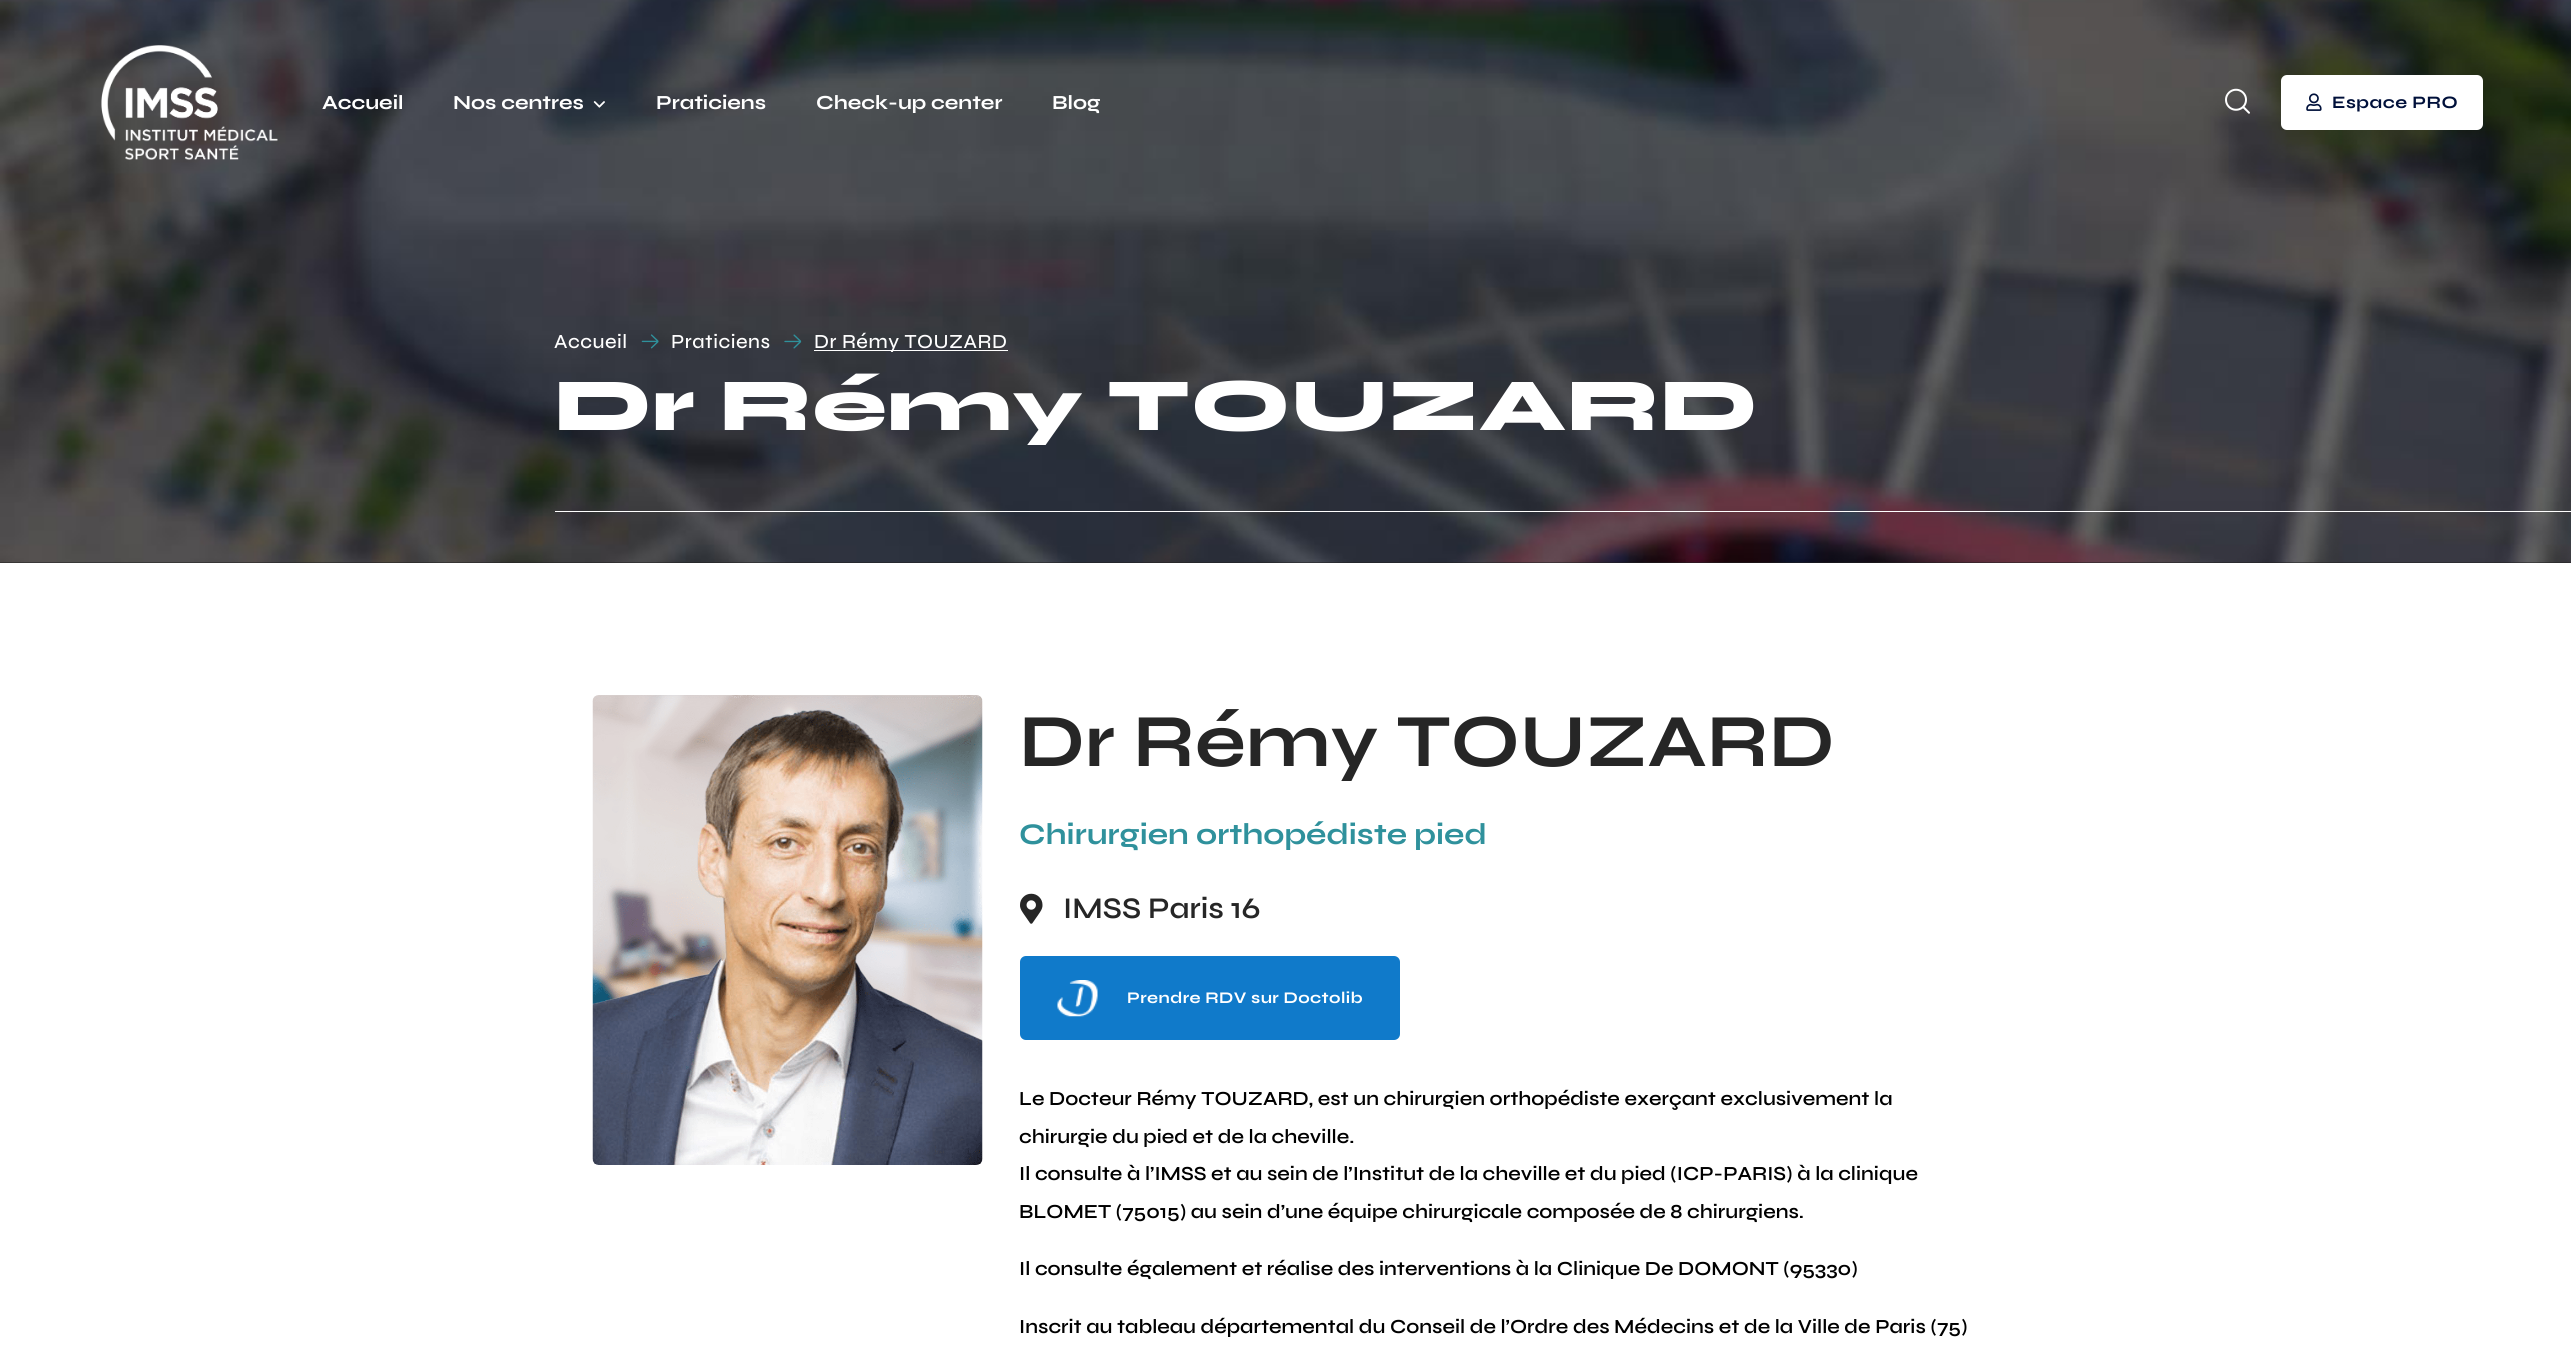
#include <cairo/cairo.h>
#include <math.h>
#include <stddef.h>

typedef struct { double x, y; const char *s; } line_t;
static cairo_t *cr;

static void rgb(unsigned color)
{
	cairo_set_source_rgb(cr, (color >> 16) / 255.0, (color >> 8 & 255) / 255.0, (color & 255) / 255.0);
}

static void tracked(double x, double y, const char *s, double letter, double word)
{
	cairo_move_to(cr, x, y);
	while (*s) {
		char ch[5] = {0};
		int n = 0;
		do ch[n++] = *s++; while ((*s & 0xC0) == 0x80);
		cairo_show_text(cr, ch);
		cairo_rel_move_to(cr, letter + word * (*ch == ' '), 0);
	}
}

static void rrect(double x, double y, double w, double h, double r)
{
	cairo_new_sub_path(cr);
	cairo_arc(cr, x + w - r, y + h - r, r, 0, M_PI / 2);
	cairo_arc(cr, x + r, y + h - r, r, M_PI / 2, M_PI);
	cairo_arc(cr, x + r, y + r, r, M_PI, 1.5 * M_PI);
	cairo_arc(cr, x + w - r, y + r, r, 1.5 * M_PI, 2 * M_PI);
	cairo_close_path(cr);
}

static void image(const char *path, double x, double y, double w, double h)
{
	cairo_surface_t *image = cairo_image_surface_create_from_png(path);
	cairo_save(cr);
	cairo_set_source_surface(cr, image, x, y);
	cairo_rectangle(cr, x, y, w, h);
	cairo_fill(cr);
	cairo_restore(cr);
	cairo_surface_destroy(image);
}

int main(void) {
	cairo_surface_t *surface = cairo_image_surface_create(CAIRO_FORMAT_RGB24, 2571, 1349);
	cr = cairo_create(surface);
	cairo_font_options_t *options = cairo_font_options_create();
	cairo_font_options_set_hint_metrics(options, CAIRO_HINT_METRICS_OFF);
	cairo_font_options_set_hint_style(options, CAIRO_HINT_STYLE_NONE);
	cairo_set_font_options(cr, options);
	cairo_set_miter_limit(cr, 4);
	rgb(0xffffff);
	cairo_paint(cr);
	rgb(0x202020);
	cairo_rectangle(cr, 0, 562, 2571, 1);
	cairo_fill(cr);
	image("img/5.png", 0, 0, 2571, 563);
	image("img/1.png", 101, 45, 177, 115);
	image("img/2.png", 593, 101, 12, 7);
	image("img/3.png", 2225, 88, 25, 26);
	rgb(0xffffff);
	rrect(2281, 75, 202, 55, 6);
	cairo_fill(cr);
	image("img/4.png", 2306, 93, 16, 18);
	image("img/6.png", 641, 334, 18, 15);
	image("img/7.png", 784, 334, 18, 15);
	cairo_rectangle(cr, 814, 350, 194, 1);
	cairo_fill(cr);
	cairo_rectangle(cr, 555, 511, 2016, 1);
	cairo_fill(cr);
	image("img/8.png", 592, 695, 391, 470);
	image("img/9.png", 1020, 893, 23, 31);
	rgb(0x107aca);
	rrect(1020, 956, 380, 84, 6);
	cairo_fill(cr);
	image("img/10.png", 1057, 980, 41, 37);
	cairo_select_font_face(cr, "Syne", CAIRO_FONT_SLANT_NORMAL, CAIRO_FONT_WEIGHT_BOLD);
	cairo_set_font_size(cr, 20);
	rgb(0xffffff);
	{
		static const line_t items[] = {
			{322, 109, "Accueil"},
			{453, 109, "Nos centres"},
			{656, 109, "Praticiens"},
			{816, 109, "Check-up center"},
			{1052, 109, "Blog"},
		};
		for (size_t i = 0; i < sizeof items / sizeof *items; i++) {
			cairo_move_to(cr, items[i].x, items[i].y);
			cairo_show_text(cr, items[i].s);
		}
	}
	cairo_set_font_size(cr, 17.5);
	rgb(0x00103a);
	tracked(2332, 108, "Espace PRO", 0.5, 0);
	cairo_select_font_face(cr, "Syne Medium", CAIRO_FONT_SLANT_NORMAL, CAIRO_FONT_WEIGHT_NORMAL);
	cairo_set_font_size(cr, 20);
	rgb(0xffffff);
	{
		static const line_t items[] = {
			{554, 348, "Accueil"},
			{671, 348, "Praticiens"},
			{814, 348, "Dr Rémy TOUZARD"},
		};
		for (size_t i = 0; i < sizeof items / sizeof *items; i++) {
			tracked(items[i].x, items[i].y, items[i].s, 0.5, 0);
		}
	}
	cairo_select_font_face(cr, "Syne ExtraBold", CAIRO_FONT_SLANT_NORMAL, CAIRO_FONT_WEIGHT_NORMAL);
	cairo_set_font_size(cr, 75);
	tracked(554, 430, "Dr Rémy TOUZARD", 0.75, 0);
	cairo_select_font_face(cr, "Syne", CAIRO_FONT_SLANT_NORMAL, CAIRO_FONT_WEIGHT_BOLD);
	rgb(0x262626);
	cairo_move_to(cr, 1019, 766);
	cairo_show_text(cr, "Dr Rémy TOUZARD");
	cairo_set_font_size(cr, 30);
	rgb(0x2f919c);
	cairo_move_to(cr, 1019, 844);
	cairo_show_text(cr, "Chirurgien orthopédiste pied");
	cairo_select_font_face(cr, "Syne SemiBold", CAIRO_FONT_SLANT_NORMAL, CAIRO_FONT_WEIGHT_NORMAL);
	rgb(0x262626);
	cairo_move_to(cr, 1063, 918);
	cairo_show_text(cr, "IMSS Paris 16");
	cairo_select_font_face(cr, "Syne", CAIRO_FONT_SLANT_NORMAL, CAIRO_FONT_WEIGHT_BOLD);
	cairo_set_font_size(cr, 16.25);
	rgb(0xffffff);
	tracked(1127, 1003, "Prendre RDV sur Doctolib", 0.4, 0);
	cairo_select_font_face(cr, "Syne SemiBold", CAIRO_FONT_SLANT_NORMAL, CAIRO_FONT_WEIGHT_NORMAL);
	cairo_set_font_size(cr, 20);
	rgb(0x000000);
	{
		static const line_t items[] = {
			{1019, 1105, "Le Docteur Rémy TOUZARD, est un chirurgien orthopédiste exerçant exclusivement la"},
			{1019, 1143, "chirurgie du pied et de la cheville."},
			{1019, 1180, "Il consulte à l’IMSS et au sein de l’Institut de la cheville et du pied (ICP-PARIS) à la clinique"},
			{1019, 1218, "BLOMET (75015) au sein d’une équipe chirurgicale composée de 8 chirurgiens."},
			{1019, 1275, "Il consulte également et réalise des interventions à la Clinique De DOMONT (95330)"},
			{1019, 1333, "Inscrit au tableau départemental du Conseil de l’Ordre des Médecins et de la Ville de Paris (75)"},
		};
		for (size_t i = 0; i < sizeof items / sizeof *items; i++) {
			cairo_move_to(cr, items[i].x, items[i].y);
			cairo_show_text(cr, items[i].s);
		}
	}
	cairo_surface_write_to_png(surface, "page.png");
	cairo_font_options_destroy(options);
	cairo_destroy(cr);
	cairo_surface_destroy(surface);
	return 0;
}
